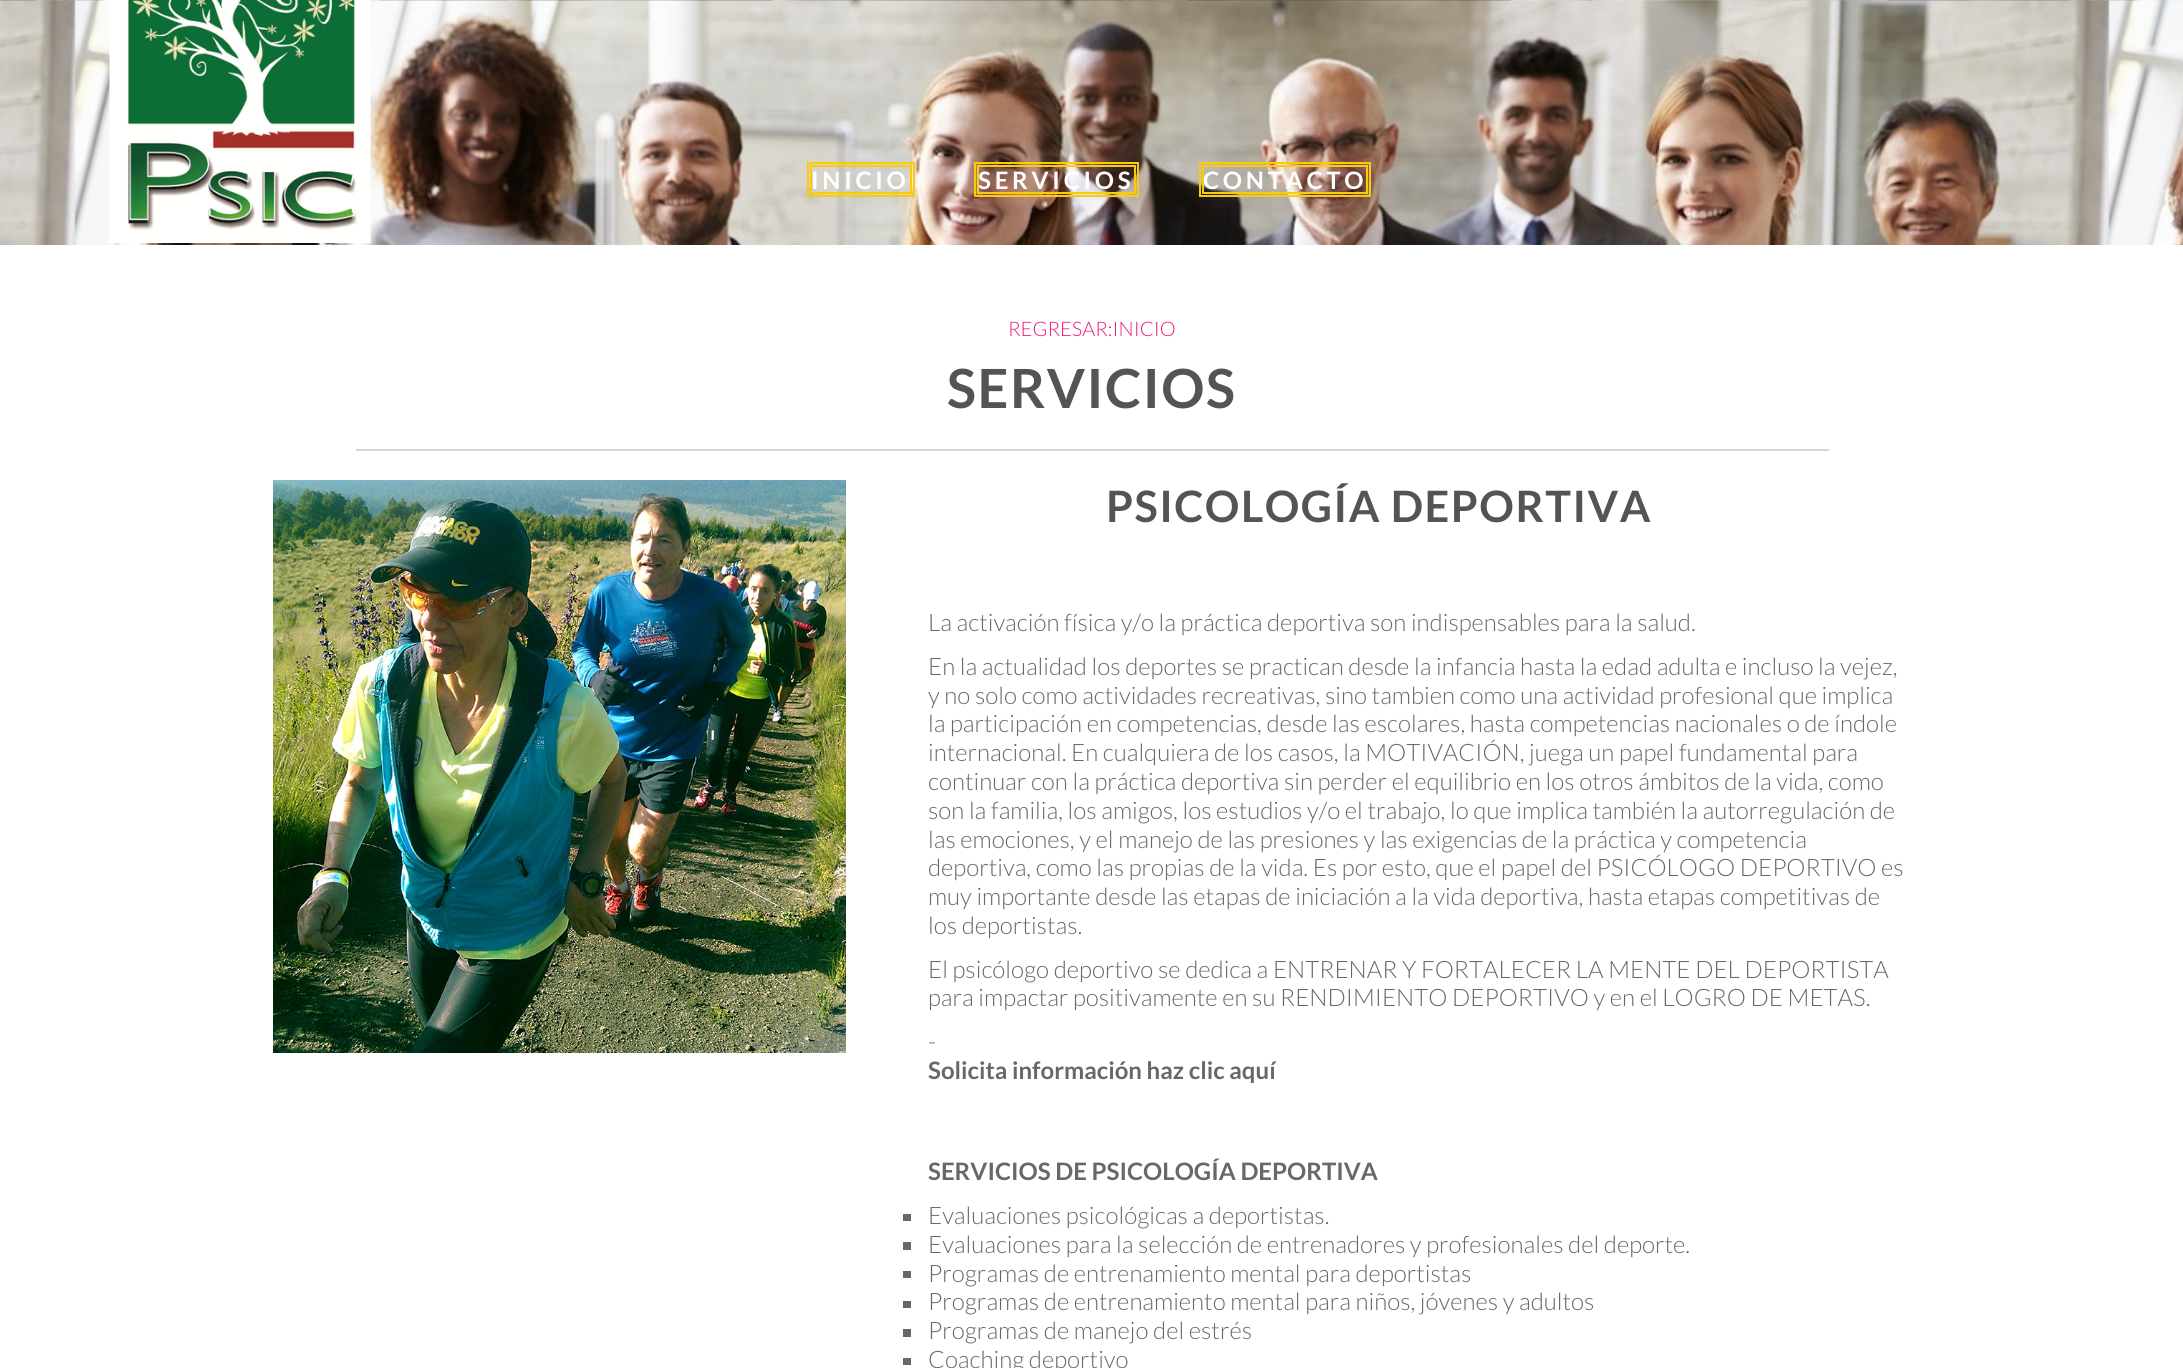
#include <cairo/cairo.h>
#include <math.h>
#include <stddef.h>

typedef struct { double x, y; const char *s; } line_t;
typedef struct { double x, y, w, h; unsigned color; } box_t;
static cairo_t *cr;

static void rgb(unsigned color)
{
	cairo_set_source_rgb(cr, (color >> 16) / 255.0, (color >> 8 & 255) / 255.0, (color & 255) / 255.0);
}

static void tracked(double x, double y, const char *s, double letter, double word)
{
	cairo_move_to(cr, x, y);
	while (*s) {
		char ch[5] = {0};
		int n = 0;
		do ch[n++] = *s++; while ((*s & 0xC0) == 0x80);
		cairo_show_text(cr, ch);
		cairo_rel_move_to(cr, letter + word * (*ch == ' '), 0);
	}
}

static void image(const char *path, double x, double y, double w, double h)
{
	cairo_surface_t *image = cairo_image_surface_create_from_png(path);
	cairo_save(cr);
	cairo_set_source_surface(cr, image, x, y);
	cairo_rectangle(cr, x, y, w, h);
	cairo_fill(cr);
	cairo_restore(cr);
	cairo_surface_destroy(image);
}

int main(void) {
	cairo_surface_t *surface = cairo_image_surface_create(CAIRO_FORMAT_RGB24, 2183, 1368);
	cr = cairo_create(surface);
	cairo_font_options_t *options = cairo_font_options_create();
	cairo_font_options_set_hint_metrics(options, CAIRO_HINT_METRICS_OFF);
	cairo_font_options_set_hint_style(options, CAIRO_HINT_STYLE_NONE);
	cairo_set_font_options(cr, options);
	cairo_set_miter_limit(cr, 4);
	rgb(0xffffff);
	cairo_paint(cr);
	image("img/1.png", 0, 0, 2183, 245);
	image("img/2.png", 109, 0, 262, 243);
	cairo_rectangle(cr, 808, 163, 106, 33);
	rgb(0xf8cc0d);
	cairo_stroke(cr);
	cairo_rectangle(cr, 811, 166, 100, 27);
	cairo_stroke(cr);
	cairo_rectangle(cr, 975, 163, 163, 33);
	cairo_stroke(cr);
	cairo_rectangle(cr, 978, 166, 157, 27);
	cairo_stroke(cr);
	cairo_rectangle(cr, 1200, 163, 170, 33);
	cairo_stroke(cr);
	cairo_rectangle(cr, 1203, 166, 164, 27);
	cairo_stroke(cr);
	rgb(0xd6d6d6);
	cairo_rectangle(cr, 356, 449, 1473, 2);
	cairo_fill(cr);
	image("img/3.png", 273, 480, 573, 573);
	{
		static const box_t items[] = {
			{903, 1214, 8, 7, 0x686868},
			{903, 1242, 8, 8, 0x686868},
			{903, 1271, 8, 7, 0x686868},
			{903, 1301, 8, 7, 0x686868},
			{903, 1329, 8, 8, 0x686868},
			{903, 1358, 8, 7, 0x686868},
		};
		for (size_t i = 0; i < sizeof items / sizeof *items; i++) {
			rgb(items[i].color);
			cairo_rectangle(cr, items[i].x, items[i].y, items[i].w, items[i].h);
			cairo_fill(cr);
		}
	}
	cairo_select_font_face(cr, "Lato", CAIRO_FONT_SLANT_NORMAL, CAIRO_FONT_WEIGHT_BOLD);
	cairo_set_font_size(cr, 24);
	rgb(0xffffff);
	{
		static const line_t items[] = {
			{811, 189, "INICIO"},
			{978, 189, "SERVICIOS"},
			{1203, 189, "CONTACTO"},
		};
		for (size_t i = 0; i < sizeof items / sizeof *items; i++) {
			tracked(items[i].x, items[i].y, items[i].s, 3.75, 0);
		}
	}
	cairo_select_font_face(cr, "Lato Light", CAIRO_FONT_SLANT_NORMAL, CAIRO_FONT_WEIGHT_NORMAL);
	cairo_set_font_size(cr, 20);
	rgb(0xea1d75);
	cairo_move_to(cr, 1008, 336);
	cairo_show_text(cr, "REGRESAR:INICIO");
	cairo_select_font_face(cr, "Lato", CAIRO_FONT_SLANT_NORMAL, CAIRO_FONT_WEIGHT_BOLD);
	cairo_set_font_size(cr, 54);
	rgb(0x545454);
	tracked(947, 408, "SERVICIOS", 1.5, 0);
	cairo_set_font_size(cr, 43.25);
	tracked(1106, 522, "PSICOLOGÍA DEPORTIVA", 1.5, 0);
	cairo_select_font_face(cr, "Lato Light", CAIRO_FONT_SLANT_NORMAL, CAIRO_FONT_WEIGHT_NORMAL);
	cairo_set_font_size(cr, 24);
	rgb(0x686868);
	{
		static const line_t items[] = {
			{928, 631, "La activación física y/o la práctica deportiva son indispensables para la salud."},
			{928, 675, "En la actualidad los deportes se practican desde la infancia hasta la edad adulta e incluso la vejez,"},
			{928, 704, "y no solo como actividades recreativas, sino tambien como una actividad profesional que implica"},
			{928, 732, "la participación en competencias, desde las escolares, hasta competencias nacionales o de índole"},
			{928, 761, "internacional. En cualquiera de los casos, la MOTIVACIÓN, juega un papel fundamental para"},
			{928, 790, "continuar con la práctica deportiva sin perder el equilibrio en los otros ámbitos de la vida, como"},
			{928, 819, "son la familia, los amigos, los estudios y/o el trabajo, lo que implica también la autorregulación de"},
			{928, 848, "las emociones, y el manejo de las presiones y las exigencias de la práctica y competencia"},
			{928, 876, "deportiva, como las propias de la vida. Es por esto, que el papel del PSICÓLOGO DEPORTIVO es"},
			{928, 905, "muy importante desde las etapas de iniciación a la vida deportiva, hasta etapas competitivas de"},
			{928, 934, "los deportistas."},
			{928, 978, "El psicólogo deportivo se dedica a ENTRENAR Y FORTALECER LA MENTE DEL DEPORTISTA"},
			{928, 1006, "para impactar positivamente en su RENDIMIENTO DEPORTIVO y en el LOGRO DE METAS."},
			{928, 1050, "-"},
		};
		for (size_t i = 0; i < sizeof items / sizeof *items; i++) {
			cairo_move_to(cr, items[i].x, items[i].y);
			cairo_show_text(cr, items[i].s);
		}
	}
	cairo_select_font_face(cr, "Lato", CAIRO_FONT_SLANT_NORMAL, CAIRO_FONT_WEIGHT_BOLD);
	cairo_move_to(cr, 928, 1079);
	cairo_show_text(cr, "Solicita información haz clic aquí");
	cairo_move_to(cr, 928, 1180);
	cairo_show_text(cr, "SERVICIOS DE PSICOLOGÍA DEPORTIVA");
	cairo_select_font_face(cr, "Lato Light", CAIRO_FONT_SLANT_NORMAL, CAIRO_FONT_WEIGHT_NORMAL);
	{
		static const line_t items[] = {
			{928, 1224, "Evaluaciones psicológicas a deportistas."},
			{928, 1253, "Evaluaciones para la selección de entrenadores y profesionales del deporte."},
			{928, 1282, "Programas de entrenamiento mental para deportistas"},
			{928, 1310, "Programas de entrenamiento mental para niños, jóvenes y adultos"},
			{928, 1339, "Programas de manejo del estrés"},
			{928, 1368, "Coaching deportivo"},
		};
		for (size_t i = 0; i < sizeof items / sizeof *items; i++) {
			cairo_move_to(cr, items[i].x, items[i].y);
			cairo_show_text(cr, items[i].s);
		}
	}
	cairo_surface_write_to_png(surface, "page.png");
	cairo_font_options_destroy(options);
	cairo_destroy(cr);
	cairo_surface_destroy(surface);
	return 0;
}
